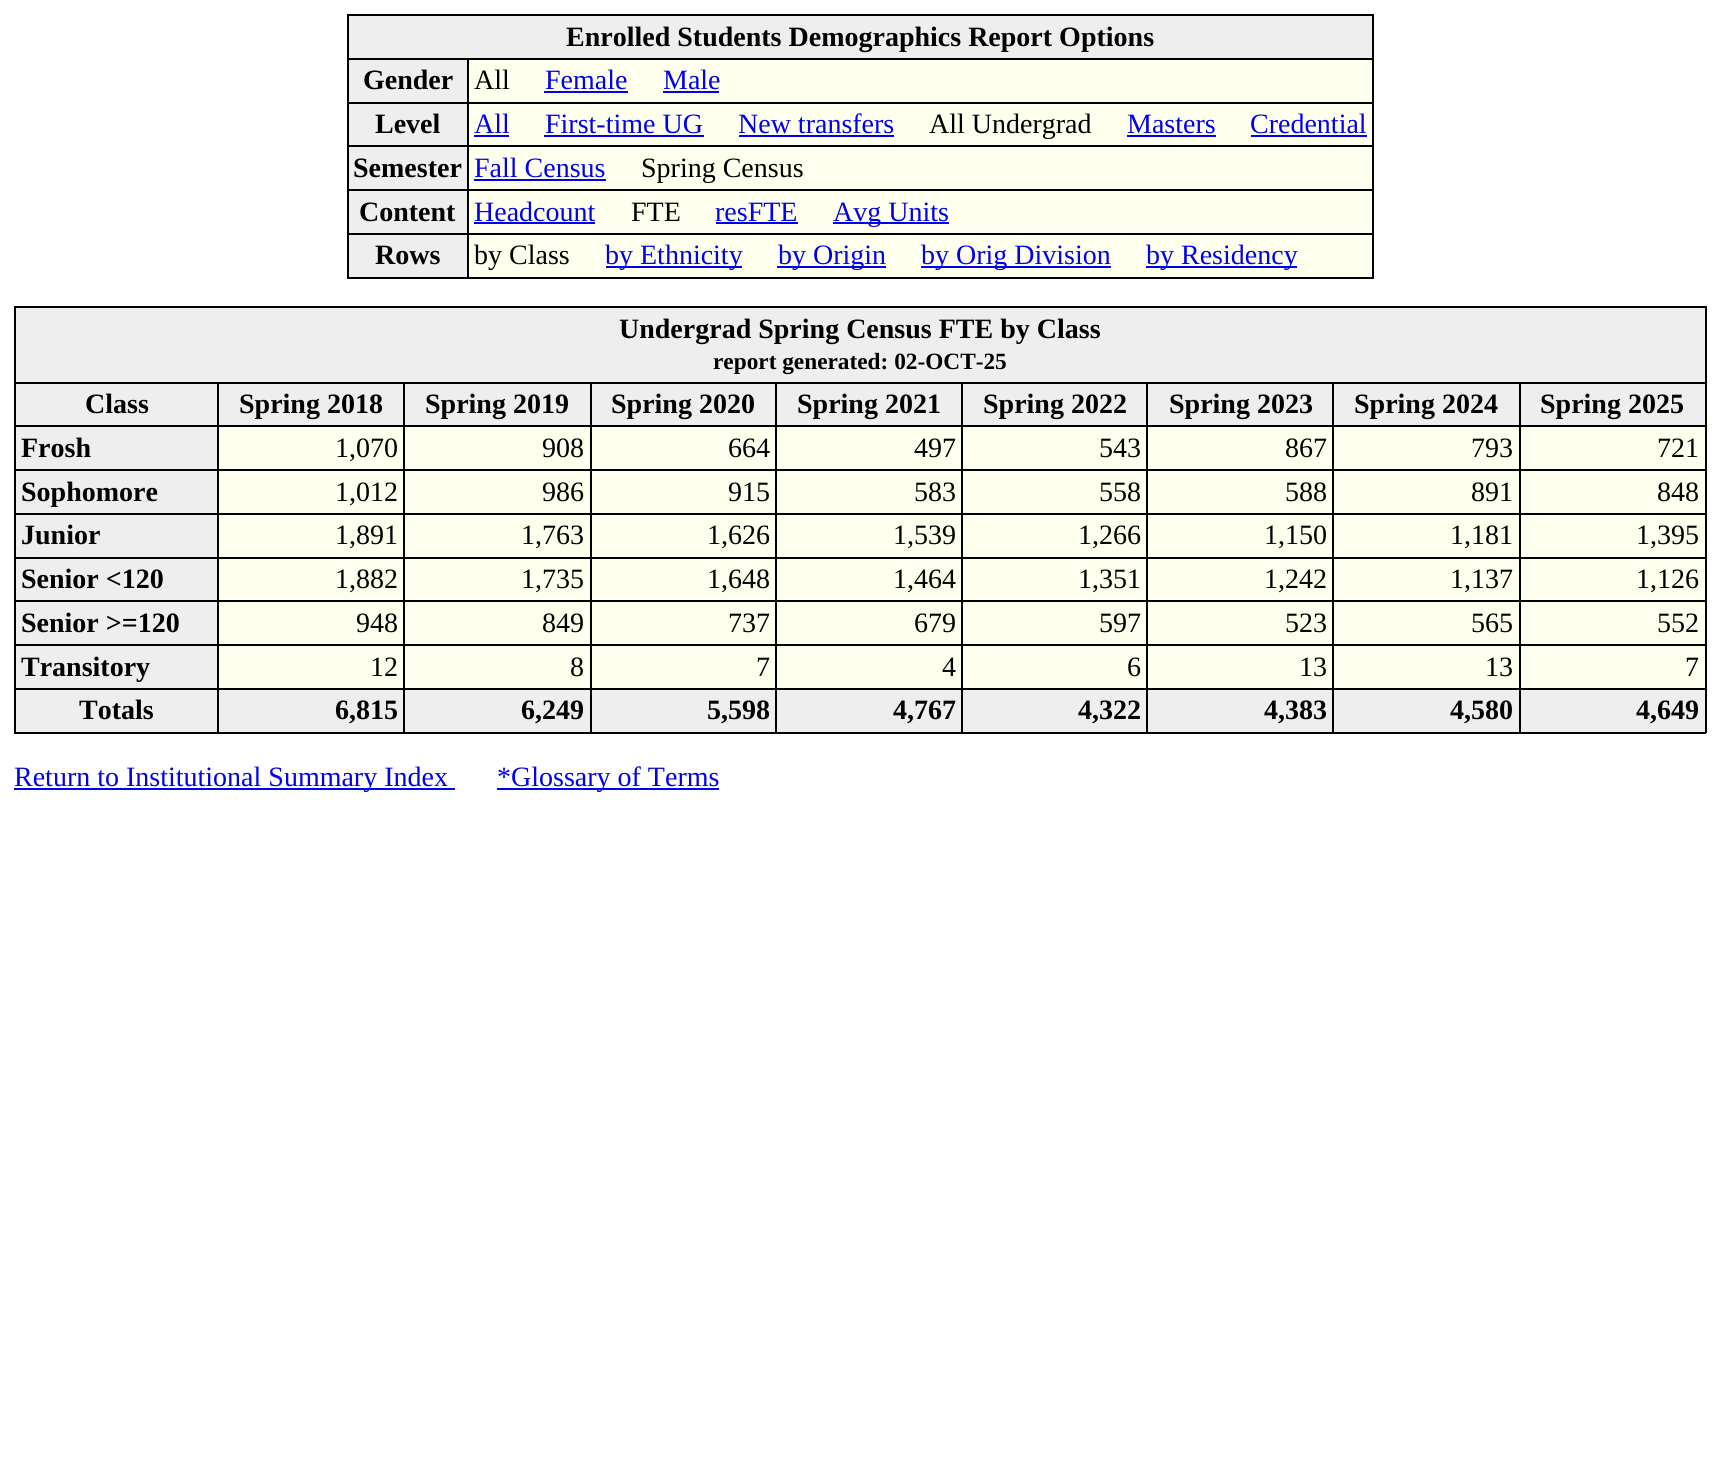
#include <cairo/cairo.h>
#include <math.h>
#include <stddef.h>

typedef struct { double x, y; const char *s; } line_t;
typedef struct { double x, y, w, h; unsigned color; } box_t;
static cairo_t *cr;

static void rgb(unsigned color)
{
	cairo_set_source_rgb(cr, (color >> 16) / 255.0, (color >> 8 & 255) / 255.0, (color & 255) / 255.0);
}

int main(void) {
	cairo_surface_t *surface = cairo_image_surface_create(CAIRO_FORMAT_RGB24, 1720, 1465);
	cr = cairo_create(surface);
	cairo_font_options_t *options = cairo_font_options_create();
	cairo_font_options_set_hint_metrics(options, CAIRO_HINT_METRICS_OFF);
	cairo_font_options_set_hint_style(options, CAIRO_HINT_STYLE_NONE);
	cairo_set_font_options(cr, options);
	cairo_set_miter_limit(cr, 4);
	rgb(0xffffff);
	cairo_paint(cr);
	{
		static const box_t items[] = {
			{469, 60, 903, 217, 0xffffee},
			{347, 14, 1027, 2, 0x000000},
			{1372, 14, 2, 264, 0x000000},
			{347, 277, 1027, 2, 0x000000},
			{347, 14, 2, 264, 0x000000},
			{349, 16, 1023, 42, 0xeeeeee},
			{347, 58, 1027, 2, 0x000000},
			{349, 60, 118, 42, 0xeeeeee},
			{544, 91, 84, 2, 0x0000ee},
			{663, 91, 56, 2, 0x0000ee},
			{347, 102, 1027, 2, 0x000000},
			{349, 104, 118, 41, 0xeeeeee},
			{474, 135, 35, 2, 0x0000ee},
			{544, 135, 160, 2, 0x0000ee},
			{739, 135, 155, 2, 0x0000ee},
			{1127, 135, 89, 2, 0x0000ee},
			{1251, 135, 116, 2, 0x0000ee},
			{347, 145, 1027, 2, 0x000000},
			{349, 147, 118, 42, 0xeeeeee},
			{474, 179, 132, 2, 0x0000ee},
			{347, 189, 1027, 2, 0x000000},
			{349, 191, 118, 42, 0xeeeeee},
			{474, 222, 121, 2, 0x0000ee},
			{716, 222, 82, 2, 0x0000ee},
			{833, 222, 116, 2, 0x0000ee},
			{347, 233, 1027, 2, 0x000000},
			{349, 235, 118, 42, 0xeeeeee},
			{467, 58, 2, 220, 0x000000},
			{606, 266, 136, 2, 0x0000ee},
			{777, 266, 109, 2, 0x0000ee},
			{921, 266, 190, 2, 0x0000ee},
			{1146, 266, 151, 2, 0x0000ee},
			{219, 427, 1486, 261, 0xffffee},
			{14, 306, 1692, 2, 0x000000},
			{1705, 306, 2, 427, 0x000000},
			{14, 732, 1692, 2, 0x000000},
			{14, 306, 2, 427, 0x000000},
			{16, 308, 1689, 74, 0xeeeeee},
			{14, 382, 1692, 2, 0x000000},
			{16, 384, 201, 41, 0xeeeeee},
			{219, 384, 184, 41, 0xeeeeee},
			{405, 384, 185, 41, 0xeeeeee},
			{592, 384, 183, 41, 0xeeeeee},
			{777, 384, 184, 41, 0xeeeeee},
			{963, 384, 183, 41, 0xeeeeee},
			{1148, 384, 184, 41, 0xeeeeee},
			{1334, 384, 185, 41, 0xeeeeee},
			{1521, 384, 184, 41, 0xeeeeee},
			{14, 425, 1692, 2, 0x000000},
			{16, 427, 201, 42, 0xeeeeee},
			{14, 469, 1692, 2, 0x000000},
			{16, 471, 201, 42, 0xeeeeee},
			{14, 513, 1692, 2, 0x000000},
			{16, 515, 201, 42, 0xeeeeee},
			{14, 557, 1692, 2, 0x000000},
			{16, 559, 201, 41, 0xeeeeee},
			{14, 600, 1692, 2, 0x000000},
			{16, 602, 201, 42, 0xeeeeee},
			{14, 644, 1692, 2, 0x000000},
			{16, 646, 201, 42, 0xeeeeee},
			{16, 690, 1689, 42, 0xeeeeee},
			{14, 688, 1692, 2, 0x000000},
			{217, 382, 2, 351, 0x000000},
			{403, 382, 2, 351, 0x000000},
			{590, 382, 2, 351, 0x000000},
			{775, 382, 2, 351, 0x000000},
			{961, 382, 2, 351, 0x000000},
			{1146, 382, 2, 351, 0x000000},
			{1332, 382, 2, 351, 0x000000},
			{1519, 382, 2, 351, 0x000000},
			{14, 788, 441, 2, 0x0000ee},
			{497, 788, 222, 2, 0x0000ee},
		};
		for (size_t i = 0; i < sizeof items / sizeof *items; i++) {
			rgb(items[i].color);
			cairo_rectangle(cr, items[i].x, items[i].y, items[i].w, items[i].h);
			cairo_fill(cr);
		}
	}
	cairo_select_font_face(cr, "Liberation Serif", CAIRO_FONT_SLANT_NORMAL, CAIRO_FONT_WEIGHT_BOLD);
	cairo_set_font_size(cr, 28);
	rgb(0x000000);
	cairo_move_to(cr, 566, 46);
	cairo_show_text(cr, "Enrolled Students Demographics Report Options");
	cairo_move_to(cr, 363, 89);
	cairo_show_text(cr, "Gender");
	cairo_select_font_face(cr, "Liberation Serif", CAIRO_FONT_SLANT_NORMAL, CAIRO_FONT_WEIGHT_NORMAL);
	cairo_move_to(cr, 474, 89);
	cairo_show_text(cr, "All");
	rgb(0x0000ee);
	cairo_move_to(cr, 545, 89);
	cairo_show_text(cr, "Female");
	cairo_move_to(cr, 663, 89);
	cairo_show_text(cr, "Male");
	cairo_select_font_face(cr, "Liberation Serif", CAIRO_FONT_SLANT_NORMAL, CAIRO_FONT_WEIGHT_BOLD);
	rgb(0x000000);
	cairo_move_to(cr, 375, 133);
	cairo_show_text(cr, "Level");
	cairo_select_font_face(cr, "Liberation Serif", CAIRO_FONT_SLANT_NORMAL, CAIRO_FONT_WEIGHT_NORMAL);
	rgb(0x0000ee);
	{
		static const line_t items[] = {
			{474, 133, "All"},
			{545, 133, "First-time UG"},
			{738, 133, "New transfers"},
		};
		for (size_t i = 0; i < sizeof items / sizeof *items; i++) {
			cairo_move_to(cr, items[i].x, items[i].y);
			cairo_show_text(cr, items[i].s);
		}
	}
	rgb(0x000000);
	cairo_move_to(cr, 929, 133);
	cairo_show_text(cr, "All Undergrad");
	rgb(0x0000ee);
	cairo_move_to(cr, 1127, 133);
	cairo_show_text(cr, "Masters");
	cairo_move_to(cr, 1250, 133);
	cairo_show_text(cr, "Credential");
	cairo_select_font_face(cr, "Liberation Serif", CAIRO_FONT_SLANT_NORMAL, CAIRO_FONT_WEIGHT_BOLD);
	rgb(0x000000);
	cairo_move_to(cr, 353, 177);
	cairo_show_text(cr, "Semester");
	cairo_select_font_face(cr, "Liberation Serif", CAIRO_FONT_SLANT_NORMAL, CAIRO_FONT_WEIGHT_NORMAL);
	rgb(0x0000ee);
	cairo_move_to(cr, 474, 177);
	cairo_show_text(cr, "Fall Census");
	rgb(0x000000);
	cairo_move_to(cr, 641, 177);
	cairo_show_text(cr, "Spring Census");
	cairo_select_font_face(cr, "Liberation Serif", CAIRO_FONT_SLANT_NORMAL, CAIRO_FONT_WEIGHT_BOLD);
	cairo_move_to(cr, 359, 221);
	cairo_show_text(cr, "Content");
	cairo_select_font_face(cr, "Liberation Serif", CAIRO_FONT_SLANT_NORMAL, CAIRO_FONT_WEIGHT_NORMAL);
	rgb(0x0000ee);
	cairo_move_to(cr, 474, 221);
	cairo_show_text(cr, "Headcount");
	rgb(0x000000);
	cairo_move_to(cr, 631, 221);
	cairo_show_text(cr, "FTE");
	rgb(0x0000ee);
	cairo_move_to(cr, 715, 221);
	cairo_show_text(cr, "resFTE");
	cairo_move_to(cr, 833, 221);
	cairo_show_text(cr, "Avg Units");
	cairo_select_font_face(cr, "Liberation Serif", CAIRO_FONT_SLANT_NORMAL, CAIRO_FONT_WEIGHT_BOLD);
	rgb(0x000000);
	cairo_move_to(cr, 375, 264);
	cairo_show_text(cr, "Rows");
	cairo_select_font_face(cr, "Liberation Serif", CAIRO_FONT_SLANT_NORMAL, CAIRO_FONT_WEIGHT_NORMAL);
	cairo_move_to(cr, 474, 264);
	cairo_show_text(cr, "by Class");
	rgb(0x0000ee);
	{
		static const line_t items[] = {
			{605, 264, "by Ethnicity"},
			{778, 264, "by Origin"},
			{921, 264, "by Orig Division"},
			{1146, 264, "by Residency"},
		};
		for (size_t i = 0; i < sizeof items / sizeof *items; i++) {
			cairo_move_to(cr, items[i].x, items[i].y);
			cairo_show_text(cr, items[i].s);
		}
	}
	cairo_select_font_face(cr, "Liberation Serif", CAIRO_FONT_SLANT_NORMAL, CAIRO_FONT_WEIGHT_BOLD);
	rgb(0x000000);
	cairo_move_to(cr, 619, 338);
	cairo_show_text(cr, "Undergrad Spring Census FTE by Class");
	cairo_set_font_size(cr, 23.3);
	cairo_move_to(cr, 713, 369);
	cairo_show_text(cr, "report generated: 02-OCT-25");
	cairo_set_font_size(cr, 28);
	{
		static const line_t items[] = {
			{85, 413, "Class"},
			{239, 413, "Spring 2018"},
			{425, 413, "Spring 2019"},
			{611, 413, "Spring 2020"},
			{797, 413, "Spring 2021"},
			{983, 413, "Spring 2022"},
			{1169, 413, "Spring 2023"},
			{1354, 413, "Spring 2024"},
			{1540, 413, "Spring 2025"},
			{21, 457, "Frosh"},
		};
		for (size_t i = 0; i < sizeof items / sizeof *items; i++) {
			cairo_move_to(cr, items[i].x, items[i].y);
			cairo_show_text(cr, items[i].s);
		}
	}
	cairo_select_font_face(cr, "Liberation Serif", CAIRO_FONT_SLANT_NORMAL, CAIRO_FONT_WEIGHT_NORMAL);
	{
		static const line_t items[] = {
			{335, 457, "1,070"},
			{542, 457, "908"},
			{728, 457, "664"},
			{914, 457, "497"},
			{1099, 457, "543"},
			{1285, 457, "867"},
			{1471, 457, "793"},
			{1657, 457, "721"},
		};
		for (size_t i = 0; i < sizeof items / sizeof *items; i++) {
			cairo_move_to(cr, items[i].x, items[i].y);
			cairo_show_text(cr, items[i].s);
		}
	}
	cairo_select_font_face(cr, "Liberation Serif", CAIRO_FONT_SLANT_NORMAL, CAIRO_FONT_WEIGHT_BOLD);
	cairo_move_to(cr, 21, 501);
	cairo_show_text(cr, "Sophomore");
	cairo_select_font_face(cr, "Liberation Serif", CAIRO_FONT_SLANT_NORMAL, CAIRO_FONT_WEIGHT_NORMAL);
	{
		static const line_t items[] = {
			{335, 501, "1,012"},
			{542, 501, "986"},
			{728, 501, "915"},
			{914, 501, "583"},
			{1099, 501, "558"},
			{1285, 501, "588"},
			{1471, 501, "891"},
			{1657, 501, "848"},
		};
		for (size_t i = 0; i < sizeof items / sizeof *items; i++) {
			cairo_move_to(cr, items[i].x, items[i].y);
			cairo_show_text(cr, items[i].s);
		}
	}
	cairo_select_font_face(cr, "Liberation Serif", CAIRO_FONT_SLANT_NORMAL, CAIRO_FONT_WEIGHT_BOLD);
	cairo_move_to(cr, 21, 544);
	cairo_show_text(cr, "Junior");
	cairo_select_font_face(cr, "Liberation Serif", CAIRO_FONT_SLANT_NORMAL, CAIRO_FONT_WEIGHT_NORMAL);
	{
		static const line_t items[] = {
			{335, 544, "1,891"},
			{521, 544, "1,763"},
			{707, 544, "1,626"},
			{893, 544, "1,539"},
			{1078, 544, "1,266"},
			{1264, 544, "1,150"},
			{1450, 544, "1,181"},
			{1636, 544, "1,395"},
		};
		for (size_t i = 0; i < sizeof items / sizeof *items; i++) {
			cairo_move_to(cr, items[i].x, items[i].y);
			cairo_show_text(cr, items[i].s);
		}
	}
	cairo_select_font_face(cr, "Liberation Serif", CAIRO_FONT_SLANT_NORMAL, CAIRO_FONT_WEIGHT_BOLD);
	cairo_move_to(cr, 21, 588);
	cairo_show_text(cr, "Senior <120");
	cairo_select_font_face(cr, "Liberation Serif", CAIRO_FONT_SLANT_NORMAL, CAIRO_FONT_WEIGHT_NORMAL);
	{
		static const line_t items[] = {
			{335, 588, "1,882"},
			{521, 588, "1,735"},
			{707, 588, "1,648"},
			{893, 588, "1,464"},
			{1078, 588, "1,351"},
			{1264, 588, "1,242"},
			{1450, 588, "1,137"},
			{1636, 588, "1,126"},
		};
		for (size_t i = 0; i < sizeof items / sizeof *items; i++) {
			cairo_move_to(cr, items[i].x, items[i].y);
			cairo_show_text(cr, items[i].s);
		}
	}
	cairo_select_font_face(cr, "Liberation Serif", CAIRO_FONT_SLANT_NORMAL, CAIRO_FONT_WEIGHT_BOLD);
	cairo_move_to(cr, 21, 632);
	cairo_show_text(cr, "Senior >=120");
	cairo_select_font_face(cr, "Liberation Serif", CAIRO_FONT_SLANT_NORMAL, CAIRO_FONT_WEIGHT_NORMAL);
	{
		static const line_t items[] = {
			{356, 632, "948"},
			{542, 632, "849"},
			{728, 632, "737"},
			{914, 632, "679"},
			{1099, 632, "597"},
			{1285, 632, "523"},
			{1471, 632, "565"},
			{1657, 632, "552"},
		};
		for (size_t i = 0; i < sizeof items / sizeof *items; i++) {
			cairo_move_to(cr, items[i].x, items[i].y);
			cairo_show_text(cr, items[i].s);
		}
	}
	cairo_select_font_face(cr, "Liberation Serif", CAIRO_FONT_SLANT_NORMAL, CAIRO_FONT_WEIGHT_BOLD);
	cairo_move_to(cr, 21, 676);
	cairo_show_text(cr, "Transitory");
	cairo_select_font_face(cr, "Liberation Serif", CAIRO_FONT_SLANT_NORMAL, CAIRO_FONT_WEIGHT_NORMAL);
	{
		static const line_t items[] = {
			{370, 676, "12"},
			{570, 676, "8"},
			{756, 676, "7"},
			{942, 676, "4"},
			{1127, 676, "6"},
			{1299, 676, "13"},
			{1485, 676, "13"},
			{1685, 676, "7"},
		};
		for (size_t i = 0; i < sizeof items / sizeof *items; i++) {
			cairo_move_to(cr, items[i].x, items[i].y);
			cairo_show_text(cr, items[i].s);
		}
	}
	cairo_select_font_face(cr, "Liberation Serif", CAIRO_FONT_SLANT_NORMAL, CAIRO_FONT_WEIGHT_BOLD);
	{
		static const line_t items[] = {
			{79, 719, "Totals"},
			{335, 719, "6,815"},
			{521, 719, "6,249"},
			{707, 719, "5,598"},
			{893, 719, "4,767"},
			{1078, 719, "4,322"},
			{1264, 719, "4,383"},
			{1450, 719, "4,580"},
			{1636, 719, "4,649"},
		};
		for (size_t i = 0; i < sizeof items / sizeof *items; i++) {
			cairo_move_to(cr, items[i].x, items[i].y);
			cairo_show_text(cr, items[i].s);
		}
	}
	cairo_select_font_face(cr, "Liberation Serif", CAIRO_FONT_SLANT_NORMAL, CAIRO_FONT_WEIGHT_NORMAL);
	rgb(0x0000ee);
	cairo_move_to(cr, 14, 786);
	cairo_show_text(cr, "Return to Institutional Summary Index");
	cairo_move_to(cr, 497, 786);
	cairo_show_text(cr, "*Glossary of Terms");
	cairo_surface_write_to_png(surface, "page.png");
	cairo_font_options_destroy(options);
	cairo_destroy(cr);
	cairo_surface_destroy(surface);
	return 0;
}
